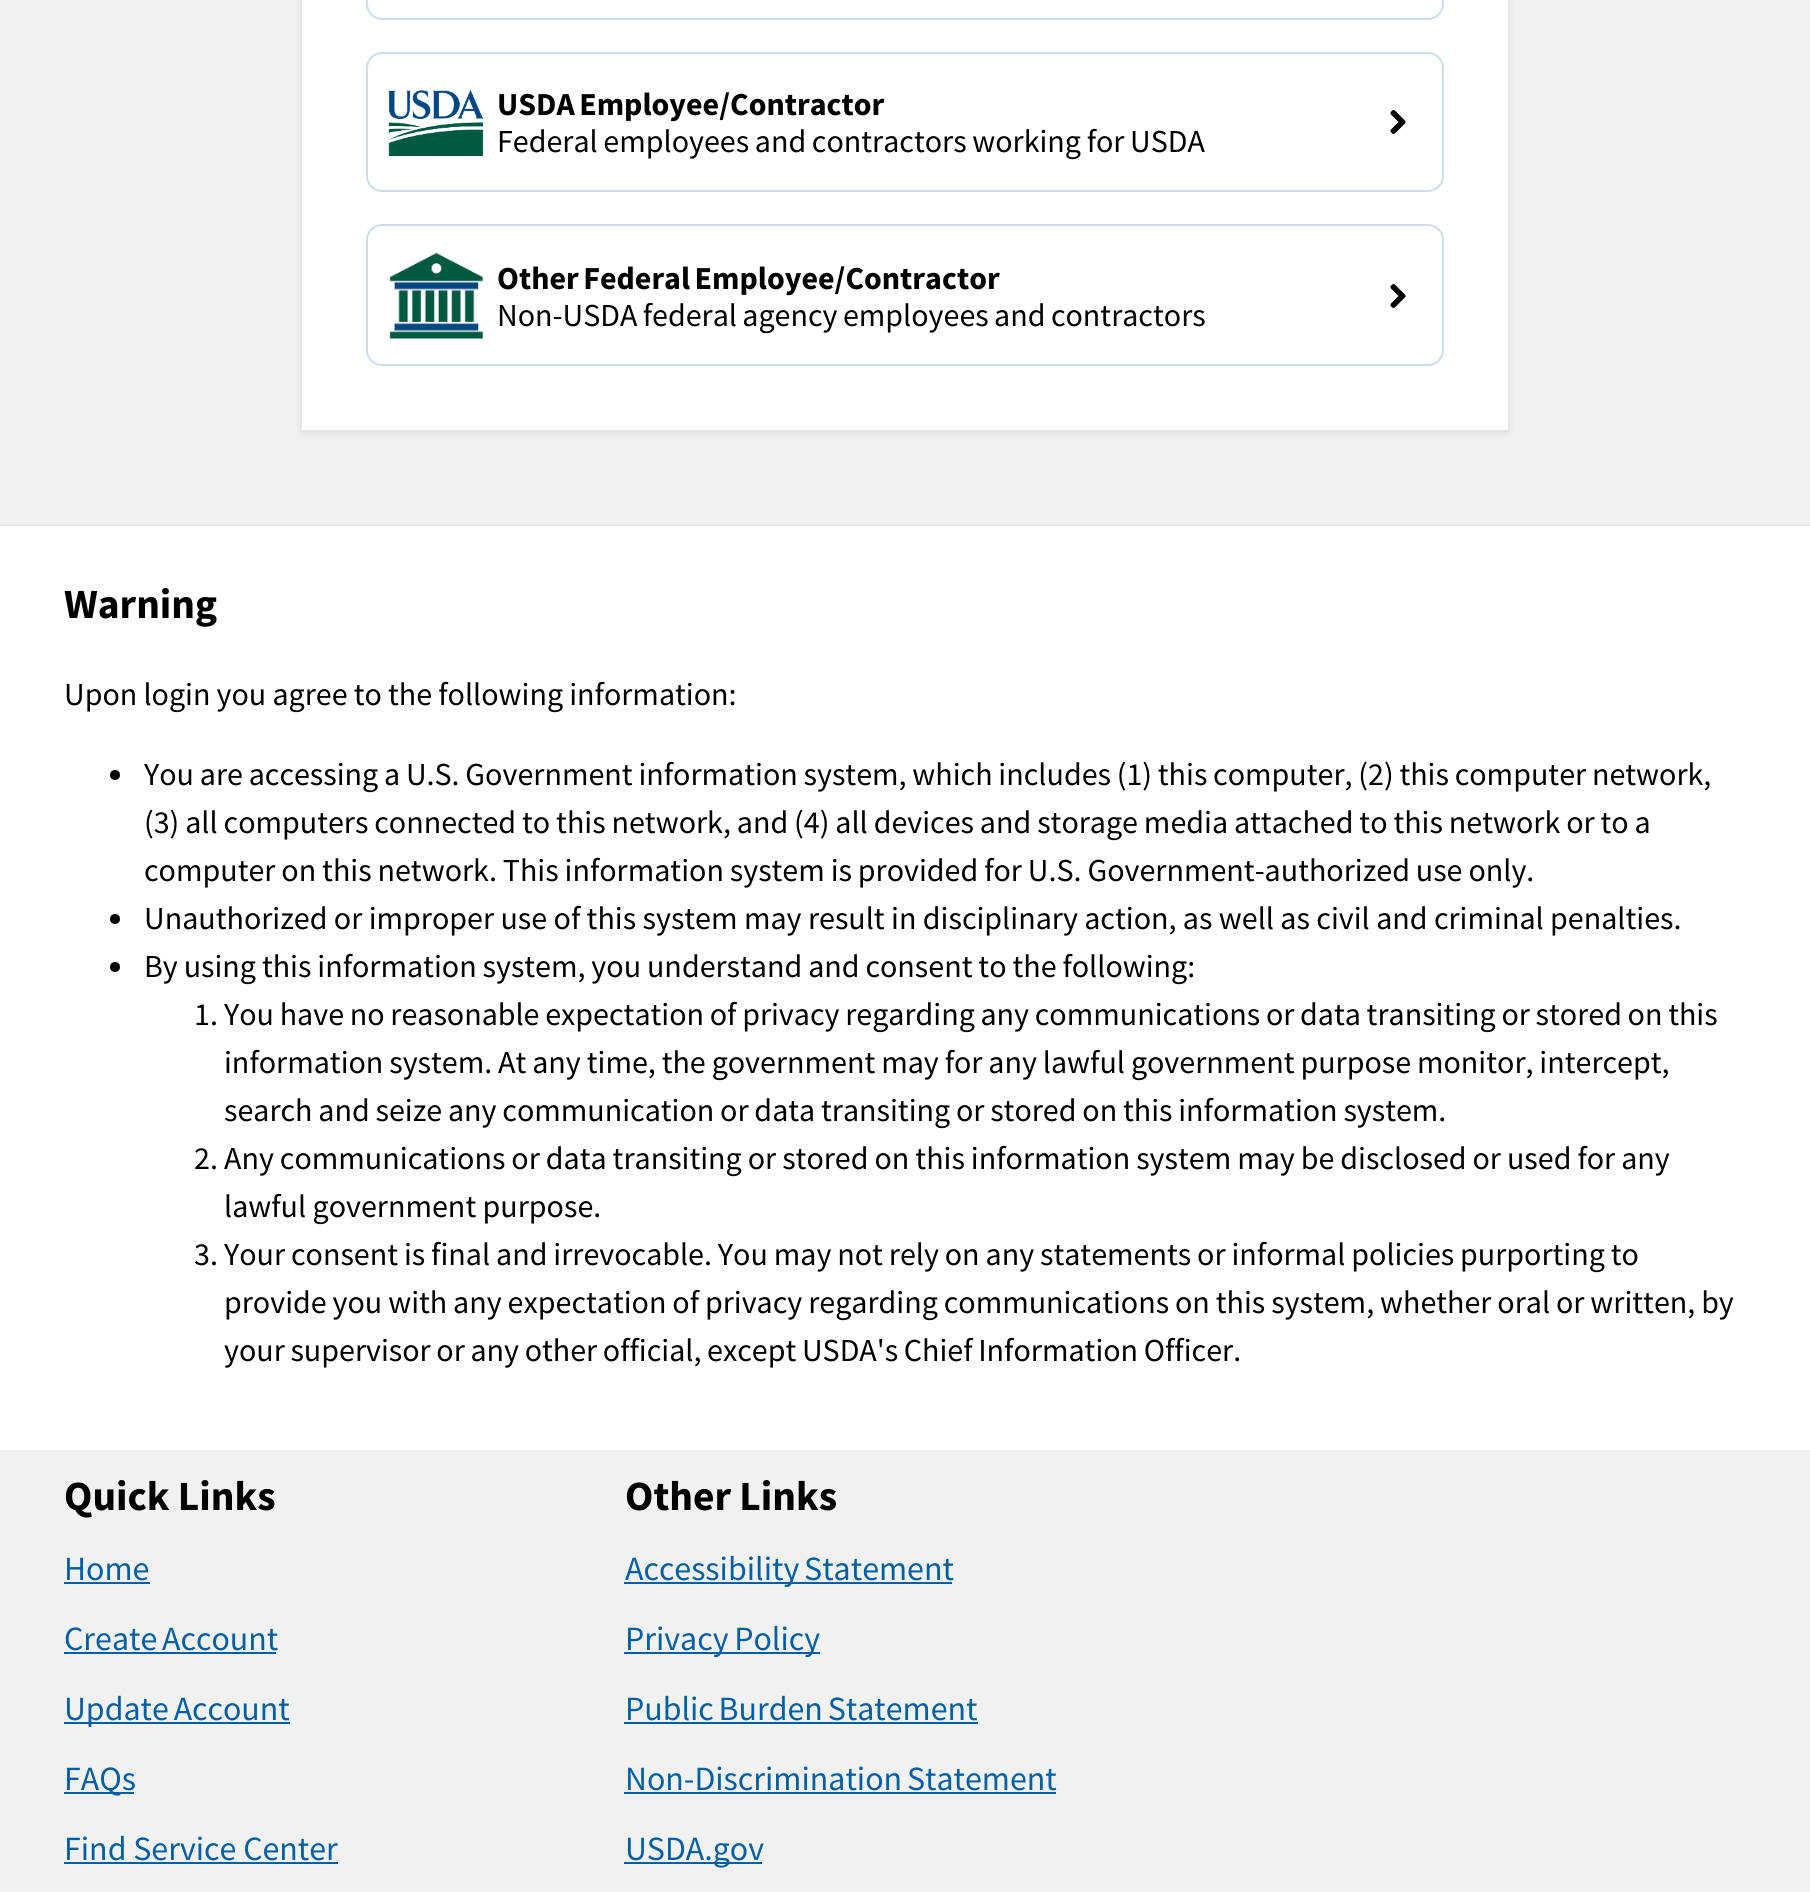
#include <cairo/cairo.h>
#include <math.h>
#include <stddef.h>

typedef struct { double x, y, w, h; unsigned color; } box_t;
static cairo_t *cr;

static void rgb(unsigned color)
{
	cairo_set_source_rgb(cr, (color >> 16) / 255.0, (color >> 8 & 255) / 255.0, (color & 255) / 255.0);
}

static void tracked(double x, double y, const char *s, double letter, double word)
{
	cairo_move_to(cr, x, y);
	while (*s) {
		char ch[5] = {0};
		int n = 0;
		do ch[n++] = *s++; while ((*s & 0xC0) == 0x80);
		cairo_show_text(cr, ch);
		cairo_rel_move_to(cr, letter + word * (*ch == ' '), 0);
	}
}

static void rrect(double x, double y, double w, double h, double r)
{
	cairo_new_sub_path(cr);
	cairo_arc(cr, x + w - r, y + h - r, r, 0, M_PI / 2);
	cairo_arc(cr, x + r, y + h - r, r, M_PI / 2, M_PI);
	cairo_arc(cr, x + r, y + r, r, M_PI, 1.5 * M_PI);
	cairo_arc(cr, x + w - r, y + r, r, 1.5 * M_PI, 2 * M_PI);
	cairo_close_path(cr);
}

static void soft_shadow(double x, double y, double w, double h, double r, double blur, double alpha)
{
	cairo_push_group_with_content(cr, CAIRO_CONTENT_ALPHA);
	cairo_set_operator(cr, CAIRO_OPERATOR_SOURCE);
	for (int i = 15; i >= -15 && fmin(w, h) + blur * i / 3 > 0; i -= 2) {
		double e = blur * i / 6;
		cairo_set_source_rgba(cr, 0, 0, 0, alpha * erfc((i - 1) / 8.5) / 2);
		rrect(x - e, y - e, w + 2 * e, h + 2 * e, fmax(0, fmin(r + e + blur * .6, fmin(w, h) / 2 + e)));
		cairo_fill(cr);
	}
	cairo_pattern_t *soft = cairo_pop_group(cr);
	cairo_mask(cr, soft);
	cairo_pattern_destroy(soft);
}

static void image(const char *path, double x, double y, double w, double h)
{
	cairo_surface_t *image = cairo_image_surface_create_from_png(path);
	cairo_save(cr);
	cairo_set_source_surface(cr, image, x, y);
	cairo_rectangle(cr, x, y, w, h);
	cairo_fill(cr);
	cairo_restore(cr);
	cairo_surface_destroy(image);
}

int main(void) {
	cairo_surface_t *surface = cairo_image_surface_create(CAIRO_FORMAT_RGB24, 1810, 1892);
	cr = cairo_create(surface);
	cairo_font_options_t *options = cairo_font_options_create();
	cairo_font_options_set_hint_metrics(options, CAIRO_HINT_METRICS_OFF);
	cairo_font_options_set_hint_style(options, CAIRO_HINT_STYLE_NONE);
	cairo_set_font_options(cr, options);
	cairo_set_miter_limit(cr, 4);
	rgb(0xf1f1f1);
	cairo_paint(cr);
	rgb(0x000000);
	soft_shadow(302, -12, 1206, 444, 0, 4, 0.1);
	rgb(0xffffff);
	cairo_rectangle(cr, 302, 0, 1206, 430);
	cairo_fill(cr);
	rrect(367, -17, 1076, 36, 15);
	rgb(0xcedced);
	cairo_stroke(cr);
	image("img/1.png", 1390, 110, 16, 24);
	rrect(367, 53, 1076, 138, 15);
	cairo_stroke(cr);
	image("img/2.png", 388, 90, 96, 66);
	image("img/1.png", 1390, 284, 16, 24);
	rrect(367, 225, 1076, 140, 15);
	cairo_stroke(cr);
	image("img/3.png", 389, 252, 95, 88);
	rgb(0x000000);
	soft_shadow(0, 528, 1810, 924, 0, 2, 0.24);
	soft_shadow(0, 528, 1810, 924, 0, 3, 0.12);
	rgb(0xffffff);
	cairo_rectangle(cr, 0, 526, 1810, 924);
	cairo_fill(cr);
	rgb(0x000000);
	cairo_arc(cr, 115, 775, 5, 0, 2 * M_PI);
	cairo_fill(cr);
	cairo_arc(cr, 115, 919, 5, 0, 2 * M_PI);
	cairo_fill(cr);
	cairo_arc(cr, 115, 967, 5, 0, 2 * M_PI);
	cairo_fill(cr);
	{
		static const box_t items[] = {
			{0, 1450, 1810, 6, 0xf0f0f0},
			{64, 1582, 86, 2, 0x005ea2},
			{64, 1652, 212, 2, 0x005ea2},
			{64, 1722, 226, 2, 0x005ea2},
			{64, 1792, 70, 2, 0x005ea2},
			{64, 1862, 274, 2, 0x005ea2},
			{624, 1582, 328, 2, 0x005ea2},
			{624, 1652, 196, 2, 0x005ea2},
			{624, 1722, 354, 2, 0x005ea2},
			{624, 1792, 432, 2, 0x005ea2},
			{624, 1862, 138, 2, 0x005ea2},
		};
		for (size_t i = 0; i < sizeof items / sizeof *items; i++) {
			rgb(items[i].color);
			cairo_rectangle(cr, items[i].x, items[i].y, items[i].w, items[i].h);
			cairo_fill(cr);
		}
	}
	cairo_select_font_face(cr, "Source Sans Pro", CAIRO_FONT_SLANT_NORMAL, CAIRO_FONT_WEIGHT_BOLD);
	cairo_set_font_size(cr, 32);
	rgb(0x000000);
	tracked(497, 115, "USDA Employee/Contractor", 0, -2);
	cairo_select_font_face(cr, "Source Sans Pro", CAIRO_FONT_SLANT_NORMAL, CAIRO_FONT_WEIGHT_NORMAL);
	tracked(497, 152, "Federal employees and contractors working for USDA", 0, -0.75);
	cairo_select_font_face(cr, "Source Sans Pro", CAIRO_FONT_SLANT_NORMAL, CAIRO_FONT_WEIGHT_BOLD);
	tracked(497, 289, "Other Federal Employee/Contractor", 0, -2);
	cairo_select_font_face(cr, "Source Sans Pro", CAIRO_FONT_SLANT_NORMAL, CAIRO_FONT_WEIGHT_NORMAL);
	tracked(497, 326, "Non-USDA federal agency employees and contractors", 0, -1);
	cairo_select_font_face(cr, "Source Sans Pro", CAIRO_FONT_SLANT_NORMAL, CAIRO_FONT_WEIGHT_BOLD);
	cairo_set_font_size(cr, 41.5);
	cairo_move_to(cr, 64, 618);
	cairo_show_text(cr, "Warning");
	cairo_select_font_face(cr, "Source Sans Pro", CAIRO_FONT_SLANT_NORMAL, CAIRO_FONT_WEIGHT_NORMAL);
	cairo_set_font_size(cr, 32);
	tracked(64, 705, "Upon login you agree to the following information:", 0, -0.25);
	tracked(144, 785, "You are accessing a U.S. Government information system, which includes (1) this computer, (2) this computer network,", 0, -0.6);
	tracked(144, 833, "(3) all computers connected to this network, and (4) all devices and storage media attached to this network or to a", 0, -0.5);
	tracked(144, 881, "computer on this network. This information system is provided for U.S. Government-authorized use only.", 0, -0.5);
	cairo_move_to(cr, 144, 929);
	cairo_show_text(cr, "Unauthorized or improper use of this system may result in disciplinary action, as well as civil and criminal penalties.");
	tracked(144, 977, "By using this information system, you understand and consent to the following:", 0, -0.5);
	cairo_move_to(cr, 194, 1025);
	cairo_show_text(cr, "1.");
	tracked(224, 1025, "You have no reasonable expectation of privacy regarding any communications or data transiting or stored on this", 0, -0.7);
	tracked(224, 1073, "information system. At any time, the government may for any lawful government purpose monitor, intercept,", 0, -0.5);
	tracked(224, 1121, "search and seize any communication or data transiting or stored on this information system.", 0, -0.6);
	cairo_move_to(cr, 194, 1169);
	cairo_show_text(cr, "2.");
	tracked(224, 1169, "Any communications or data transiting or stored on this information system may be disclosed or used for any", 0, -0.4);
	cairo_move_to(cr, 224, 1217);
	cairo_show_text(cr, "lawful government purpose.");
	cairo_move_to(cr, 194, 1265);
	cairo_show_text(cr, "3.");
	tracked(224, 1265, "Your consent is final and irrevocable. You may not rely on any statements or informal policies purporting to", 0, -0.5);
	tracked(224, 1313, "provide you with any expectation of privacy regarding communications on this system, whether oral or written, by", 0, -0.5);
	tracked(224, 1361, "your supervisor or any other official, except USDA's Chief Information Officer.", 0, -0.75);
	cairo_select_font_face(cr, "Source Sans Pro", CAIRO_FONT_SLANT_NORMAL, CAIRO_FONT_WEIGHT_BOLD);
	cairo_set_font_size(cr, 41.5);
	cairo_move_to(cr, 64, 1510);
	cairo_show_text(cr, "Quick Links");
	cairo_select_font_face(cr, "Source Sans Pro", CAIRO_FONT_SLANT_NORMAL, CAIRO_FONT_WEIGHT_NORMAL);
	cairo_set_font_size(cr, 33.9);
	rgb(0x005ea2);
	cairo_move_to(cr, 64, 1580);
	cairo_show_text(cr, "Home");
	tracked(64, 1650, "Create Account", 0, -2);
	tracked(64, 1720, "Update Account", 0, -2);
	cairo_move_to(cr, 64, 1790);
	cairo_show_text(cr, "FAQs");
	cairo_move_to(cr, 64, 1860);
	cairo_show_text(cr, "Find Service Center");
	cairo_select_font_face(cr, "Source Sans Pro", CAIRO_FONT_SLANT_NORMAL, CAIRO_FONT_WEIGHT_BOLD);
	cairo_set_font_size(cr, 41.5);
	rgb(0x000000);
	cairo_move_to(cr, 625, 1510);
	cairo_show_text(cr, "Other Links");
	cairo_select_font_face(cr, "Source Sans Pro", CAIRO_FONT_SLANT_NORMAL, CAIRO_FONT_WEIGHT_NORMAL);
	cairo_set_font_size(cr, 33.9);
	rgb(0x005ea2);
	tracked(625, 1580, "Accessibility Statement", 0, -2);
	tracked(625, 1650, "Privacy Policy", 0, -1);
	tracked(625, 1720, "Public Burden Statement", 0, -2);
	tracked(625, 1790, "Non-Discrimination Statement", 0, -2);
	cairo_move_to(cr, 625, 1860);
	cairo_show_text(cr, "USDA.gov");
	cairo_surface_write_to_png(surface, "page.png");
	cairo_font_options_destroy(options);
	cairo_destroy(cr);
	cairo_surface_destroy(surface);
	return 0;
}
